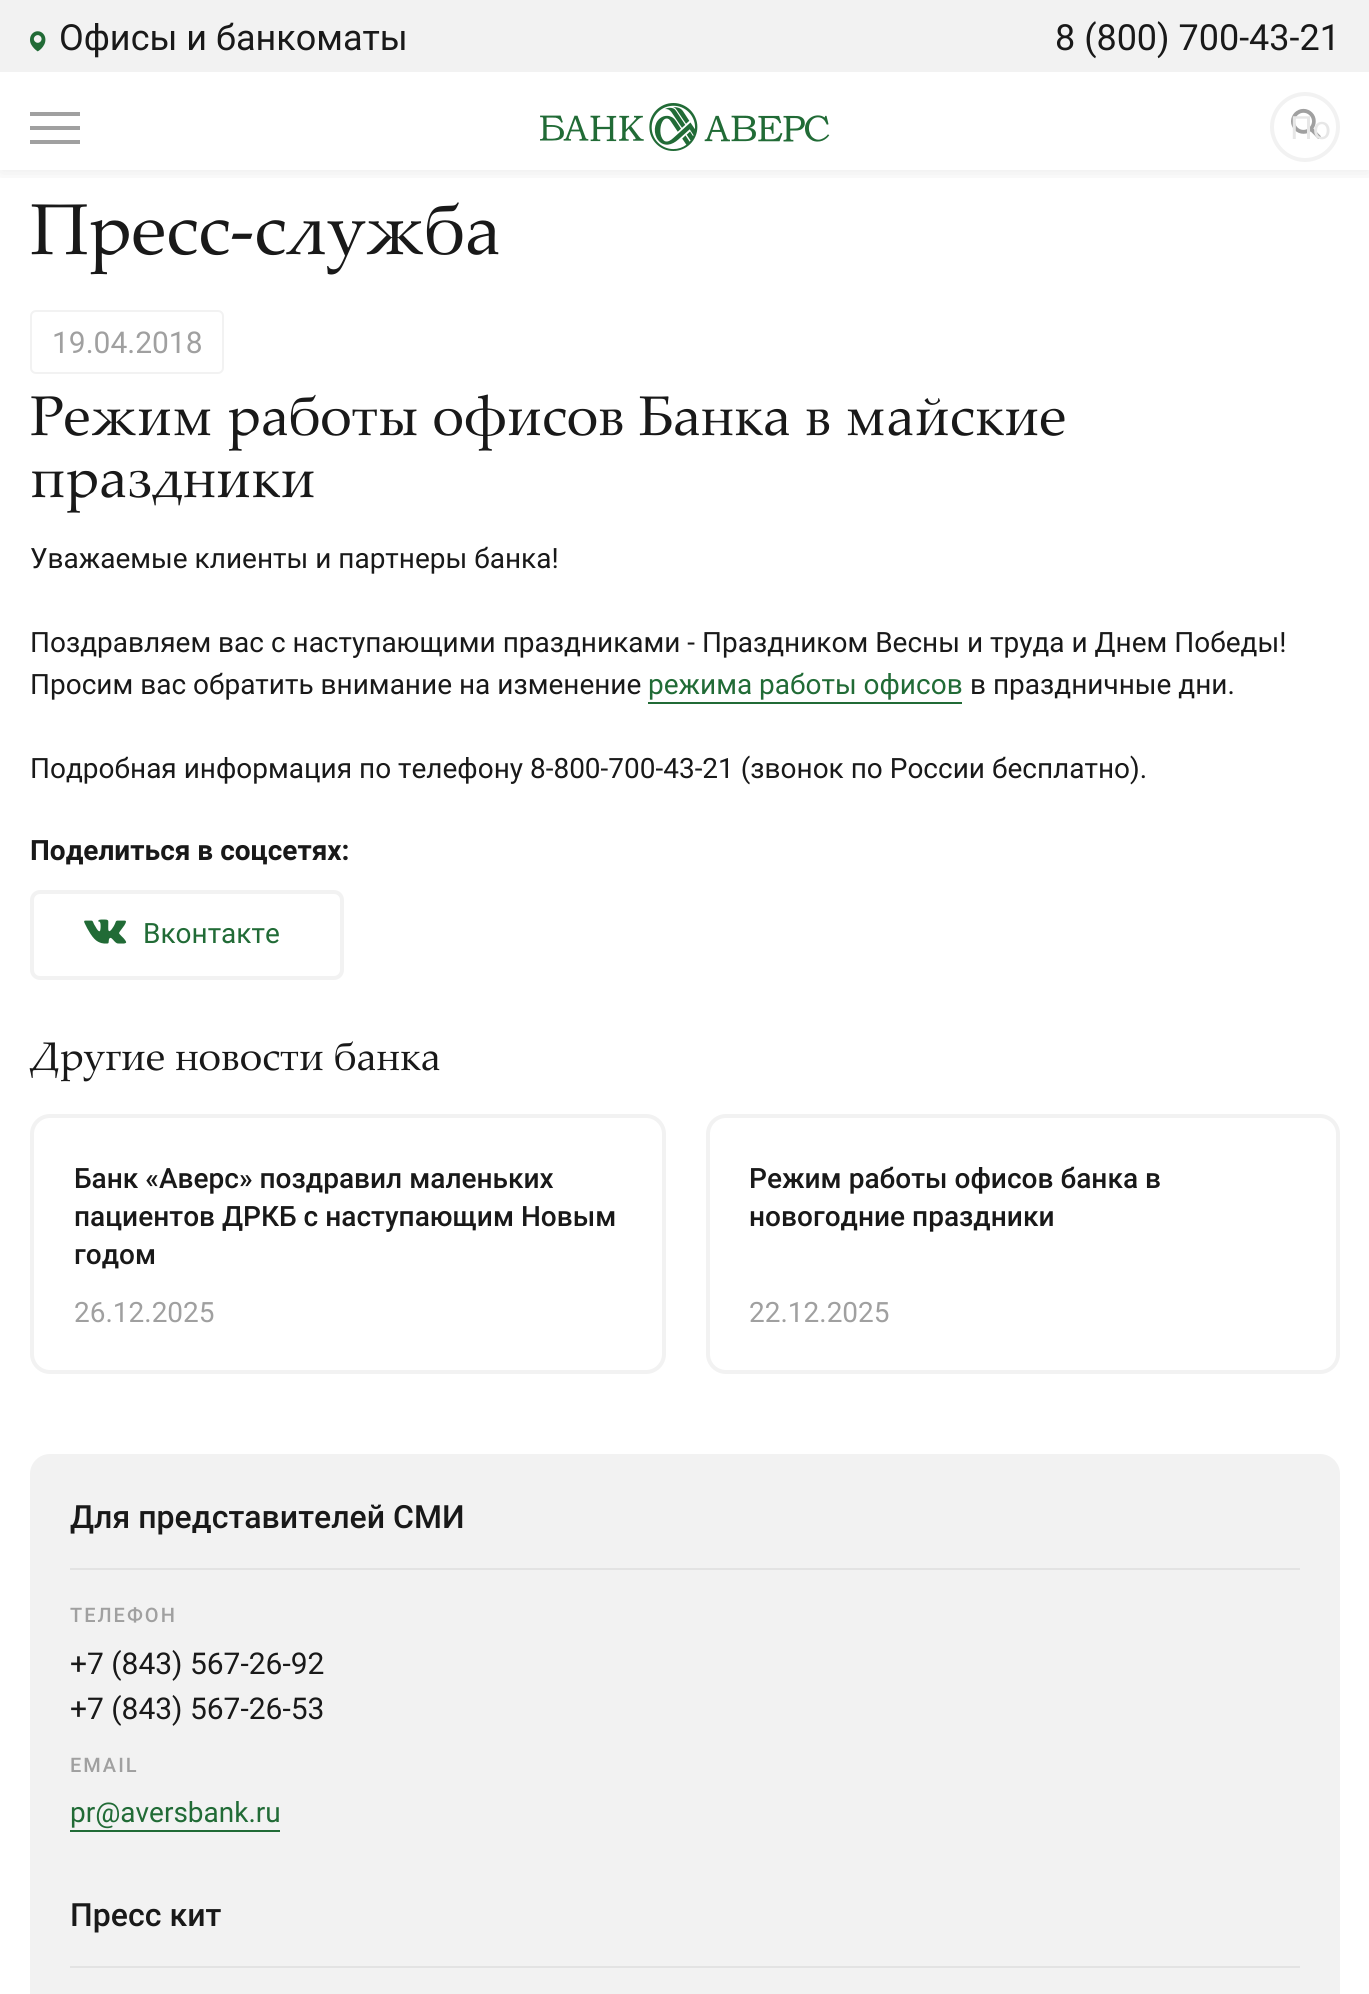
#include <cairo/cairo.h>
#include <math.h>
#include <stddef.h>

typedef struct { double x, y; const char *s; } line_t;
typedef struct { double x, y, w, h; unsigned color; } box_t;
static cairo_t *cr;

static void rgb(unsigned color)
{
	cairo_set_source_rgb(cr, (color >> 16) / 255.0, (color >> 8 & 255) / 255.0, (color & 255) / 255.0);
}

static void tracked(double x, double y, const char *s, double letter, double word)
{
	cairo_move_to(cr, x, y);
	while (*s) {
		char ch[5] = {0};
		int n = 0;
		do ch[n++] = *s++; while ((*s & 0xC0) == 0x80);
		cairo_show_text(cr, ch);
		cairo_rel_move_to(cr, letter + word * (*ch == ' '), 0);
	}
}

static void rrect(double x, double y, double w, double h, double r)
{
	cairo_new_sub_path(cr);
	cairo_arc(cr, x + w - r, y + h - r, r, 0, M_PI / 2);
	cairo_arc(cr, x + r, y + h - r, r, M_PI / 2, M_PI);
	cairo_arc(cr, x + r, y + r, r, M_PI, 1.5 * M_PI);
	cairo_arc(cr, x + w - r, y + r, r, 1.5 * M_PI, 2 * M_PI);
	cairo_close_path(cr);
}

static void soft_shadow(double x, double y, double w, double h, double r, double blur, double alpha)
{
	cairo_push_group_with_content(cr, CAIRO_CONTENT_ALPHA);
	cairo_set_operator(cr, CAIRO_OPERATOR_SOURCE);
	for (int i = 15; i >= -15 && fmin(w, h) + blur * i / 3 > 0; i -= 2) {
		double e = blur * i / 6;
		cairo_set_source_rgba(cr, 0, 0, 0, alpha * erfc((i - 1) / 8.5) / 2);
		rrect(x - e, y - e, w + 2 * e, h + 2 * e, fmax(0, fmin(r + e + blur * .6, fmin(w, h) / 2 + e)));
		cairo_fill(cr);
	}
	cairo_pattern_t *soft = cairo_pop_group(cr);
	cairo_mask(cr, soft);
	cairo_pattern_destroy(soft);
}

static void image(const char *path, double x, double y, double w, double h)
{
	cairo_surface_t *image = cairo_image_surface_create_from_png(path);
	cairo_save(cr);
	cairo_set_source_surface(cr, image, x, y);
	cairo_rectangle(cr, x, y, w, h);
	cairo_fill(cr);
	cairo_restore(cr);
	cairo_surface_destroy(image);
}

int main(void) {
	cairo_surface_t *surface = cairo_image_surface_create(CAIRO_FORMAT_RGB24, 1369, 1994);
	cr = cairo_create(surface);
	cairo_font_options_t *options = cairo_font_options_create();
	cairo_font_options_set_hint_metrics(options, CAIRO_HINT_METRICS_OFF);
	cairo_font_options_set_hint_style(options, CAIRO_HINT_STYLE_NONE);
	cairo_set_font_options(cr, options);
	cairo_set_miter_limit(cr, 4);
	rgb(0xffffff);
	cairo_paint(cr);
	cairo_save(cr);
	cairo_rectangle(cr, 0, 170, 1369, 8);
	cairo_clip(cr);
	rgb(0x000000);
	soft_shadow(0, 0, 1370, 170, 0, 10, 0.1);
	cairo_restore(cr);
	rgb(0xf2f2f2);
	cairo_rectangle(cr, 0, 0, 1369, 72);
	cairo_fill(cr);
	image("img/1.png", 30, 31, 16, 21);
	{
		static const box_t items[] = {
			{30, 112, 50, 4, 0xa0a0a0},
			{30, 126, 50, 4, 0xa0a0a0},
			{30, 140, 50, 4, 0xa0a0a0},
		};
		for (size_t i = 0; i < sizeof items / sizeof *items; i++) {
			rgb(items[i].color);
			cairo_rectangle(cr, items[i].x, items[i].y, items[i].w, items[i].h);
			cairo_fill(cr);
		}
	}
	image("img/2.png", 540, 103, 290, 48);
	rgb(0xf2f2f2);
	cairo_set_fill_rule(cr, CAIRO_FILL_RULE_EVEN_ODD);
	cairo_new_path(cr);
	cairo_move_to(cr, 1305, 92);
	cairo_curve_to(cr, 1324, 92, 1340, 108, 1340, 127);
	cairo_curve_to(cr, 1340, 146, 1324, 162, 1305, 162);
	cairo_curve_to(cr, 1286, 162, 1270, 146, 1270, 127);
	cairo_curve_to(cr, 1270, 108, 1286, 92, 1305, 92);
	cairo_close_path(cr);
	cairo_move_to(cr, 1305, 96);
	cairo_curve_to(cr, 1288, 96, 1274, 110, 1274, 127);
	cairo_curve_to(cr, 1274, 144, 1288, 158, 1305, 158);
	cairo_curve_to(cr, 1322, 158, 1336, 144, 1336, 127);
	cairo_curve_to(cr, 1336, 110, 1322, 96, 1305, 96);
	cairo_close_path(cr);
	cairo_fill(cr);
	image("img/3.png", 1291, 108, 30, 31);
	rrect(31, 311, 192, 62, 5);
	cairo_stroke(cr);
	rgb(0x216b36);
	cairo_rectangle(cr, 648, 702, 314, 2);
	cairo_fill(cr);
	rrect(32, 892, 310, 86, 8);
	rgb(0xf2f2f2);
	cairo_set_line_width(cr, 4);
	cairo_stroke(cr);
	image("img/4.png", 84, 919, 43, 25);
	rrect(32, 1116, 632, 256, 18);
	cairo_stroke(cr);
	rrect(708, 1116, 630, 256, 18);
	cairo_stroke(cr);
	rrect(30, 1454, 1310, 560, 20);
	cairo_fill(cr);
	{
		static const box_t items[] = {
			{70, 1568, 1230, 2, 0xe3e3e3},
			{70, 1830, 210, 2, 0x216b36},
			{70, 1966, 1230, 2, 0xe3e3e3},
		};
		for (size_t i = 0; i < sizeof items / sizeof *items; i++) {
			rgb(items[i].color);
			cairo_rectangle(cr, items[i].x, items[i].y, items[i].w, items[i].h);
			cairo_fill(cr);
		}
	}
	cairo_select_font_face(cr, "Roboto", CAIRO_FONT_SLANT_NORMAL, CAIRO_FONT_WEIGHT_NORMAL);
	cairo_set_font_size(cr, 36);
	rgb(0x191919);
	cairo_move_to(cr, 59, 50);
	cairo_show_text(cr, "Офисы и банкоматы");
	cairo_move_to(cr, 1055, 50);
	cairo_show_text(cr, "8 (800) 700-43-21");
	cairo_set_font_size(cr, 32);
	rgb(0xe7e7e7);
	cairo_move_to(cr, 1290, 139);
	cairo_show_text(cr, "По");
	cairo_select_font_face(cr, "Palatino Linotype", CAIRO_FONT_SLANT_NORMAL, CAIRO_FONT_WEIGHT_NORMAL);
	cairo_set_font_size(cr, 72);
	rgb(0x191919);
	cairo_move_to(cr, 30, 254);
	cairo_show_text(cr, "Пресс-служба");
	cairo_select_font_face(cr, "Roboto", CAIRO_FONT_SLANT_NORMAL, CAIRO_FONT_WEIGHT_NORMAL);
	cairo_set_font_size(cr, 30);
	rgb(0xa0a0a0);
	cairo_move_to(cr, 52, 353);
	cairo_show_text(cr, "19.04.2018");
	cairo_select_font_face(cr, "Palatino Linotype", CAIRO_FONT_SLANT_NORMAL, CAIRO_FONT_WEIGHT_NORMAL);
	cairo_set_font_size(cr, 56);
	rgb(0x191919);
	cairo_move_to(cr, 30, 435);
	cairo_show_text(cr, "Режим работы офисов Банка в майские");
	cairo_move_to(cr, 30, 497);
	cairo_show_text(cr, "праздники");
	cairo_select_font_face(cr, "Roboto", CAIRO_FONT_SLANT_NORMAL, CAIRO_FONT_WEIGHT_NORMAL);
	cairo_set_font_size(cr, 28);
	{
		static const line_t items[] = {
			{30, 568, "Уважаемые клиенты и партнеры банка!"},
			{30, 652, "Поздравляем вас с наступающими праздниками - Праздником Весны и труда и Днем Победы!"},
			{30, 694, "Просим вас обратить внимание на изменение"},
		};
		for (size_t i = 0; i < sizeof items / sizeof *items; i++) {
			cairo_move_to(cr, items[i].x, items[i].y);
			cairo_show_text(cr, items[i].s);
		}
	}
	rgb(0x216b36);
	cairo_move_to(cr, 648, 694);
	cairo_show_text(cr, "режима работы офисов");
	rgb(0x191919);
	cairo_move_to(cr, 970, 694);
	cairo_show_text(cr, "в праздничные дни.");
	cairo_move_to(cr, 30, 778);
	cairo_show_text(cr, "Подробная информация по телефону 8-800-700-43-21 (звонок по России бесплатно).");
	cairo_select_font_face(cr, "Roboto", CAIRO_FONT_SLANT_NORMAL, CAIRO_FONT_WEIGHT_BOLD);
	cairo_move_to(cr, 30, 860);
	cairo_show_text(cr, "Поделиться в соцсетях:");
	cairo_select_font_face(cr, "Roboto", CAIRO_FONT_SLANT_NORMAL, CAIRO_FONT_WEIGHT_NORMAL);
	rgb(0x216b36);
	cairo_move_to(cr, 143, 943);
	cairo_show_text(cr, "Вконтакте");
	cairo_select_font_face(cr, "Palatino Linotype", CAIRO_FONT_SLANT_NORMAL, CAIRO_FONT_WEIGHT_NORMAL);
	cairo_set_font_size(cr, 40);
	rgb(0x191919);
	cairo_move_to(cr, 30, 1070);
	cairo_show_text(cr, "Другие новости банка");
	cairo_select_font_face(cr, "Roboto Medium", CAIRO_FONT_SLANT_NORMAL, CAIRO_FONT_WEIGHT_NORMAL);
	cairo_set_font_size(cr, 28);
	{
		static const line_t items[] = {
			{74, 1188, "Банк «Аверс» поздравил маленьких"},
			{74, 1226, "пациентов ДРКБ с наступающим Новым"},
			{74, 1264, "годом"},
		};
		for (size_t i = 0; i < sizeof items / sizeof *items; i++) {
			cairo_move_to(cr, items[i].x, items[i].y);
			cairo_show_text(cr, items[i].s);
		}
	}
	cairo_select_font_face(cr, "Roboto", CAIRO_FONT_SLANT_NORMAL, CAIRO_FONT_WEIGHT_NORMAL);
	rgb(0xa0a0a0);
	cairo_move_to(cr, 74, 1322);
	cairo_show_text(cr, "26.12.2025");
	cairo_select_font_face(cr, "Roboto Medium", CAIRO_FONT_SLANT_NORMAL, CAIRO_FONT_WEIGHT_NORMAL);
	rgb(0x191919);
	cairo_move_to(cr, 749, 1188);
	cairo_show_text(cr, "Режим работы офисов банка в");
	cairo_move_to(cr, 749, 1226);
	cairo_show_text(cr, "новогодние праздники");
	cairo_select_font_face(cr, "Roboto", CAIRO_FONT_SLANT_NORMAL, CAIRO_FONT_WEIGHT_NORMAL);
	rgb(0xa0a0a0);
	cairo_move_to(cr, 749, 1322);
	cairo_show_text(cr, "22.12.2025");
	cairo_select_font_face(cr, "Roboto Medium", CAIRO_FONT_SLANT_NORMAL, CAIRO_FONT_WEIGHT_NORMAL);
	cairo_set_font_size(cr, 32);
	rgb(0x191919);
	cairo_move_to(cr, 70, 1528);
	cairo_show_text(cr, "Для представителей СМИ");
	cairo_set_font_size(cr, 20);
	rgb(0xa0a0a0);
	tracked(70, 1622, "ТЕЛЕФОН", 2, 0);
	cairo_select_font_face(cr, "Roboto", CAIRO_FONT_SLANT_NORMAL, CAIRO_FONT_WEIGHT_NORMAL);
	cairo_set_font_size(cr, 30);
	rgb(0x191919);
	cairo_move_to(cr, 70, 1674);
	cairo_show_text(cr, "+7 (843) 567-26-92");
	cairo_move_to(cr, 70, 1719);
	cairo_show_text(cr, "+7 (843) 567-26-53");
	cairo_select_font_face(cr, "Roboto Medium", CAIRO_FONT_SLANT_NORMAL, CAIRO_FONT_WEIGHT_NORMAL);
	cairo_set_font_size(cr, 20);
	rgb(0xa0a0a0);
	tracked(70, 1772, "EMAIL", 2, 0);
	cairo_select_font_face(cr, "Roboto", CAIRO_FONT_SLANT_NORMAL, CAIRO_FONT_WEIGHT_NORMAL);
	cairo_set_font_size(cr, 28);
	rgb(0x216b36);
	cairo_move_to(cr, 70, 1822);
	cairo_show_text(cr, "pr@aversbank.ru");
	cairo_select_font_face(cr, "Roboto Medium", CAIRO_FONT_SLANT_NORMAL, CAIRO_FONT_WEIGHT_NORMAL);
	cairo_set_font_size(cr, 32);
	rgb(0x191919);
	cairo_move_to(cr, 70, 1926);
	cairo_show_text(cr, "Пресс кит");
	cairo_surface_write_to_png(surface, "page.png");
	cairo_font_options_destroy(options);
	cairo_destroy(cr);
	cairo_surface_destroy(surface);
	return 0;
}
